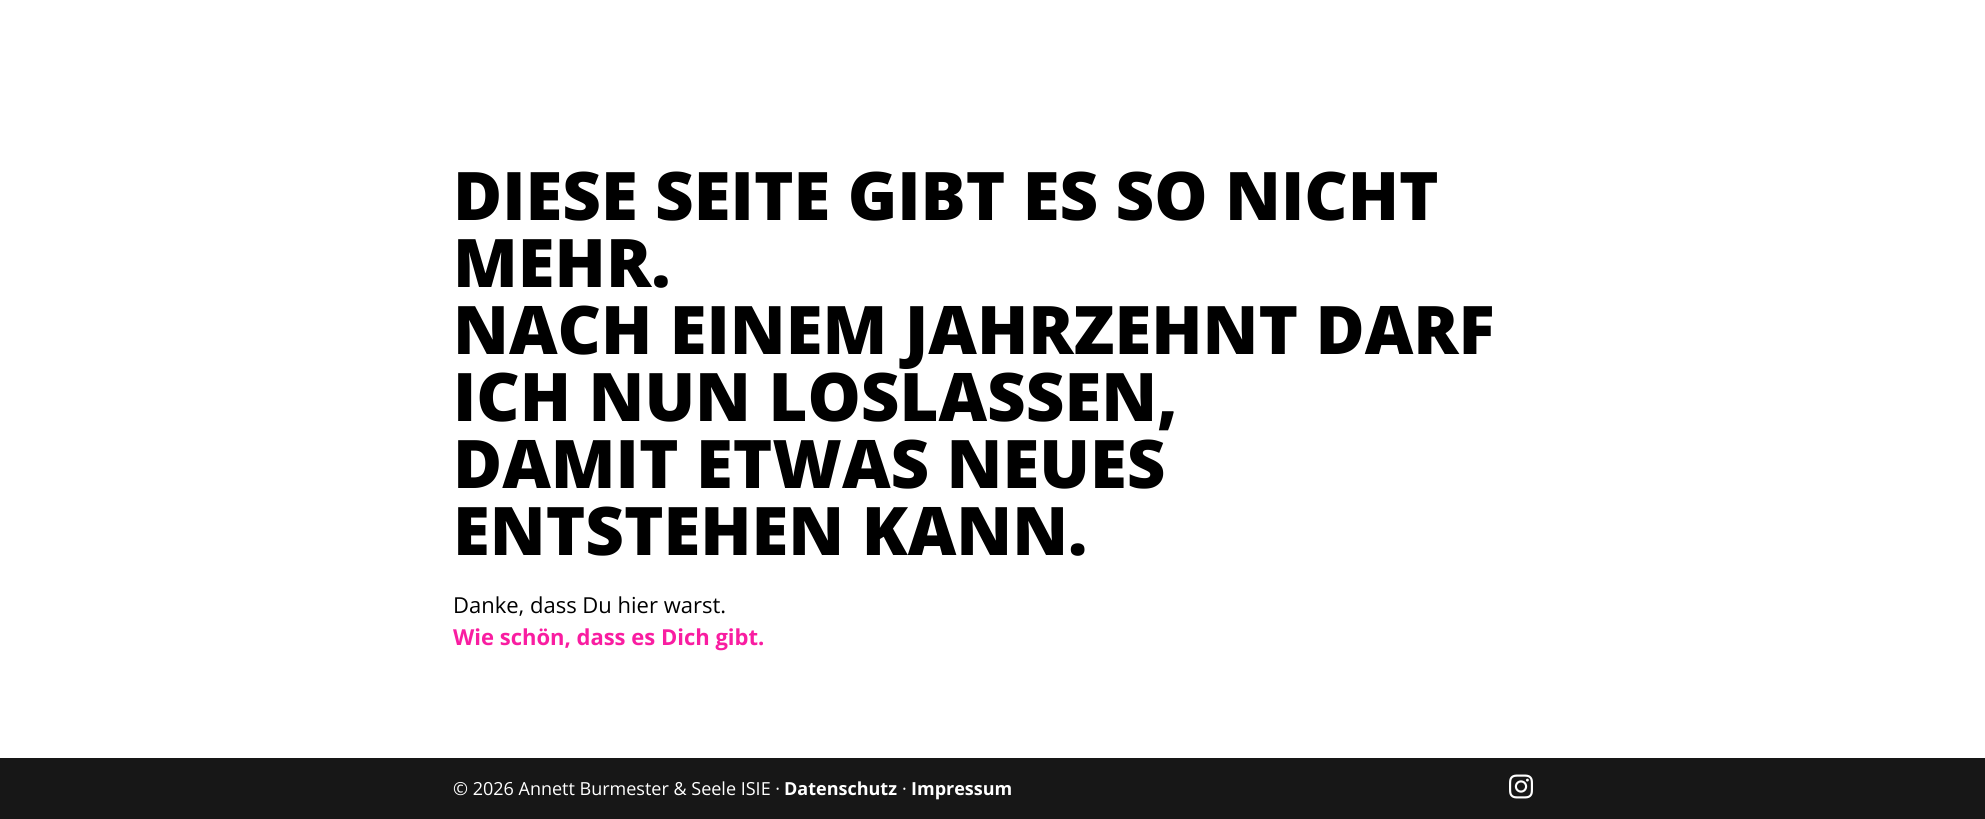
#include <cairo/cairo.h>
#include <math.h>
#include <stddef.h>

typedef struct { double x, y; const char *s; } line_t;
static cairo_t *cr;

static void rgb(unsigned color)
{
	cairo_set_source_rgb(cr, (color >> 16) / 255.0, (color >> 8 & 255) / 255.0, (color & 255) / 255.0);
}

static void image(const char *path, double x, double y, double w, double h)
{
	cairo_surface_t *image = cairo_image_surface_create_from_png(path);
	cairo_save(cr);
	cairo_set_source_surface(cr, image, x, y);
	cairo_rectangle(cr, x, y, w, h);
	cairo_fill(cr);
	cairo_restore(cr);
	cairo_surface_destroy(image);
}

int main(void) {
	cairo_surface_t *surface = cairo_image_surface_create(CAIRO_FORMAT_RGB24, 1985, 819);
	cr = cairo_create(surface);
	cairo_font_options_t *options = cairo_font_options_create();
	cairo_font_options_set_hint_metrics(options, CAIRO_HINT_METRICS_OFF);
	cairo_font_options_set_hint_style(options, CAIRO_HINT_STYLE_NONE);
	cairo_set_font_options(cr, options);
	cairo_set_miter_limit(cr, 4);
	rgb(0xffffff);
	cairo_paint(cr);
	rgb(0x171717);
	cairo_rectangle(cr, 0, 758, 1985, 61);
	cairo_fill(cr);
	image("img/1.png", 1509, 774, 24, 25);
	cairo_select_font_face(cr, "Open Sans ExtraBold", CAIRO_FONT_SLANT_NORMAL, CAIRO_FONT_WEIGHT_NORMAL);
	cairo_set_font_size(cr, 67);
	rgb(0x000000);
	{
		static const line_t items[] = {
			{453, 220, "DIESE SEITE GIBT ES SO NICHT"},
			{453, 287, "MEHR."},
			{453, 354, "NACH EINEM JAHRZEHNT DARF"},
			{453, 421, "ICH NUN LOSLASSEN,"},
			{453, 488, "DAMIT ETWAS NEUES"},
			{453, 555, "ENTSTEHEN KANN."},
		};
		for (size_t i = 0; i < sizeof items / sizeof *items; i++) {
			cairo_move_to(cr, items[i].x, items[i].y);
			cairo_show_text(cr, items[i].s);
		}
	}
	cairo_select_font_face(cr, "Open Sans", CAIRO_FONT_SLANT_NORMAL, CAIRO_FONT_WEIGHT_NORMAL);
	cairo_set_font_size(cr, 22);
	cairo_move_to(cr, 453, 613);
	cairo_show_text(cr, "Danke, dass Du hier warst.");
	cairo_select_font_face(cr, "Open Sans", CAIRO_FONT_SLANT_NORMAL, CAIRO_FONT_WEIGHT_BOLD);
	rgb(0xf91da1);
	cairo_move_to(cr, 453, 645);
	cairo_show_text(cr, "Wie schön, dass es Dich gibt.");
	cairo_select_font_face(cr, "Open Sans", CAIRO_FONT_SLANT_NORMAL, CAIRO_FONT_WEIGHT_NORMAL);
	cairo_set_font_size(cr, 18);
	rgb(0xffffff);
	cairo_move_to(cr, 453, 795);
	cairo_show_text(cr, "© 2026 Annett Burmester & Seele ISIE ·");
	cairo_select_font_face(cr, "Open Sans", CAIRO_FONT_SLANT_NORMAL, CAIRO_FONT_WEIGHT_BOLD);
	cairo_move_to(cr, 784, 795);
	cairo_show_text(cr, "Datenschutz");
	cairo_select_font_face(cr, "Open Sans", CAIRO_FONT_SLANT_NORMAL, CAIRO_FONT_WEIGHT_NORMAL);
	cairo_move_to(cr, 902, 795);
	cairo_show_text(cr, "·");
	cairo_select_font_face(cr, "Open Sans", CAIRO_FONT_SLANT_NORMAL, CAIRO_FONT_WEIGHT_BOLD);
	cairo_move_to(cr, 911, 795);
	cairo_show_text(cr, "Impressum");
	cairo_surface_write_to_png(surface, "page.png");
	cairo_font_options_destroy(options);
	cairo_destroy(cr);
	cairo_surface_destroy(surface);
	return 0;
}
